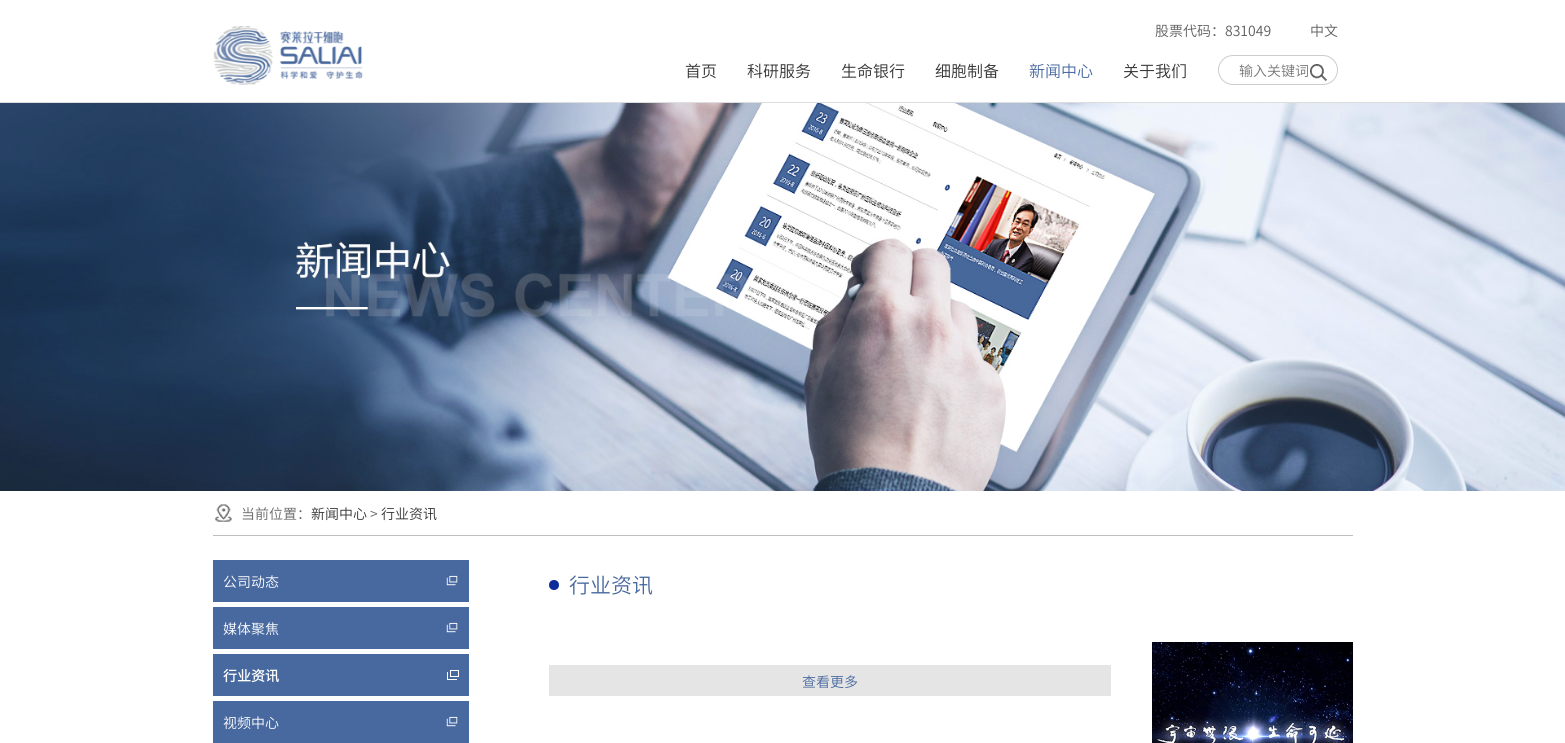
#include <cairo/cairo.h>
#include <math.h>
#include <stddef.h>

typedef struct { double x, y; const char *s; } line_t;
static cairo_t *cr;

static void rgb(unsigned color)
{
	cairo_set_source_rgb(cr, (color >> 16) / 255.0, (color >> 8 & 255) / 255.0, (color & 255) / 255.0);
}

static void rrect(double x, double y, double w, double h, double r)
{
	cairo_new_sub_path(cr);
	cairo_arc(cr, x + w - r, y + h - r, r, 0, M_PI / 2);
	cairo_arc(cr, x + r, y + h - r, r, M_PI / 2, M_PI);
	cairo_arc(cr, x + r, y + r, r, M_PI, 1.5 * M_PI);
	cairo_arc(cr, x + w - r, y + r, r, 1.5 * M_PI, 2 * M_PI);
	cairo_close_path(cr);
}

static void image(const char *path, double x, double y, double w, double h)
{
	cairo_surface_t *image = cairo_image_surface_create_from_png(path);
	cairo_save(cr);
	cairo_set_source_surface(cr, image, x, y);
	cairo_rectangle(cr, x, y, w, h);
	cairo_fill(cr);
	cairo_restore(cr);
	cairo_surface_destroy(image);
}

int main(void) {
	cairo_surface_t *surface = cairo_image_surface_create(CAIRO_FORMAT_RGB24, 1565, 743);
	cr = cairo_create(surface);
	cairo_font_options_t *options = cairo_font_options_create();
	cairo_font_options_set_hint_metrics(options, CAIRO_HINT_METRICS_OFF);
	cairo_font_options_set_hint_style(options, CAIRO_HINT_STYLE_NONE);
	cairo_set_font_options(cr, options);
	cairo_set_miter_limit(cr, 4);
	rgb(0xffffff);
	cairo_paint(cr);
	rgb(0xdddddd);
	cairo_rectangle(cr, 0, 102, 1565, 1);
	cairo_fill(cr);
	image("img/1.png", 213, 26, 150, 59);
	rrect(1218.5, 55.5, 119, 29, 14.5);
	rgb(0xcccccc);
	cairo_set_line_width(cr, 1);
	cairo_stroke(cr);
	image("img/2.png", 1310, 64, 17, 17);
	image("img/3.png", 0, 103, 1565, 388);
	rgb(0xbebebe);
	cairo_rectangle(cr, 213, 535, 1140, 1);
	cairo_fill(cr);
	image("img/4.png", 215, 504, 17, 18);
	rgb(0x48699f);
	cairo_rectangle(cr, 213, 560, 256, 42);
	cairo_fill(cr);
	image("img/5.png", 446, 575, 12, 11);
	cairo_rectangle(cr, 213, 607, 256, 42);
	cairo_fill(cr);
	image("img/5.png", 446, 622, 12, 11);
	cairo_rectangle(cr, 213, 654, 256, 42);
	cairo_fill(cr);
	image("img/6.png", 447, 670, 12, 10);
	cairo_rectangle(cr, 213, 701, 256, 42);
	cairo_fill(cr);
	image("img/5.png", 446, 716, 12, 11);
	rgb(0x0b2c99);
	cairo_arc(cr, 554, 585, 5, 0, 2 * M_PI);
	cairo_fill(cr);
	rgb(0xe5e5e5);
	cairo_rectangle(cr, 549, 665, 562, 31);
	cairo_fill(cr);
	image("img/7.png", 1152, 642, 201, 101);
	cairo_select_font_face(cr, "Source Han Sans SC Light", CAIRO_FONT_SLANT_NORMAL, CAIRO_FONT_WEIGHT_NORMAL);
	cairo_set_font_size(cr, 14);
	rgb(0x5f5d5d);
	cairo_move_to(cr, 1155, 36);
	cairo_show_text(cr, "股票代码：831049");
	cairo_move_to(cr, 1310, 36);
	cairo_show_text(cr, "中文");
	cairo_set_font_size(cr, 16);
	rgb(0x333333);
	{
		static const line_t items[] = {
			{685, 77, "首页"},
			{747, 77, "科研服务"},
			{841, 77, "生命银行"},
			{935, 77, "细胞制备"},
		};
		for (size_t i = 0; i < sizeof items / sizeof *items; i++) {
			cairo_move_to(cr, items[i].x, items[i].y);
			cairo_show_text(cr, items[i].s);
		}
	}
	rgb(0x48699f);
	cairo_move_to(cr, 1029, 77);
	cairo_show_text(cr, "新闻中心");
	rgb(0x333333);
	cairo_move_to(cr, 1123, 77);
	cairo_show_text(cr, "关于我们");
	cairo_set_font_size(cr, 14);
	rgb(0x757575);
	cairo_move_to(cr, 1239, 76);
	cairo_show_text(cr, "输入关键词");
	rgb(0x666666);
	cairo_move_to(cr, 241, 519);
	cairo_show_text(cr, "当前位置：");
	rgb(0x333333);
	cairo_move_to(cr, 311, 519);
	cairo_show_text(cr, "新闻中心");
	rgb(0x666666);
	cairo_move_to(cr, 370, 519);
	cairo_show_text(cr, ">");
	rgb(0x333333);
	cairo_move_to(cr, 381, 519);
	cairo_show_text(cr, "行业资讯");
	rgb(0xffffff);
	cairo_move_to(cr, 223, 587);
	cairo_show_text(cr, "公司动态");
	cairo_move_to(cr, 223, 634);
	cairo_show_text(cr, "媒体聚焦");
	cairo_select_font_face(cr, "Source Han Sans SC", CAIRO_FONT_SLANT_NORMAL, CAIRO_FONT_WEIGHT_BOLD);
	cairo_move_to(cr, 223, 681);
	cairo_show_text(cr, "行业资讯");
	cairo_select_font_face(cr, "Source Han Sans SC Light", CAIRO_FONT_SLANT_NORMAL, CAIRO_FONT_WEIGHT_NORMAL);
	cairo_move_to(cr, 223, 728);
	cairo_show_text(cr, "视频中心");
	cairo_set_font_size(cr, 21);
	rgb(0x48699f);
	cairo_move_to(cr, 569, 593);
	cairo_show_text(cr, "行业资讯");
	cairo_set_font_size(cr, 14);
	cairo_move_to(cr, 802, 687);
	cairo_show_text(cr, "查看更多");
	cairo_surface_write_to_png(surface, "page.png");
	cairo_font_options_destroy(options);
	cairo_destroy(cr);
	cairo_surface_destroy(surface);
	return 0;
}
